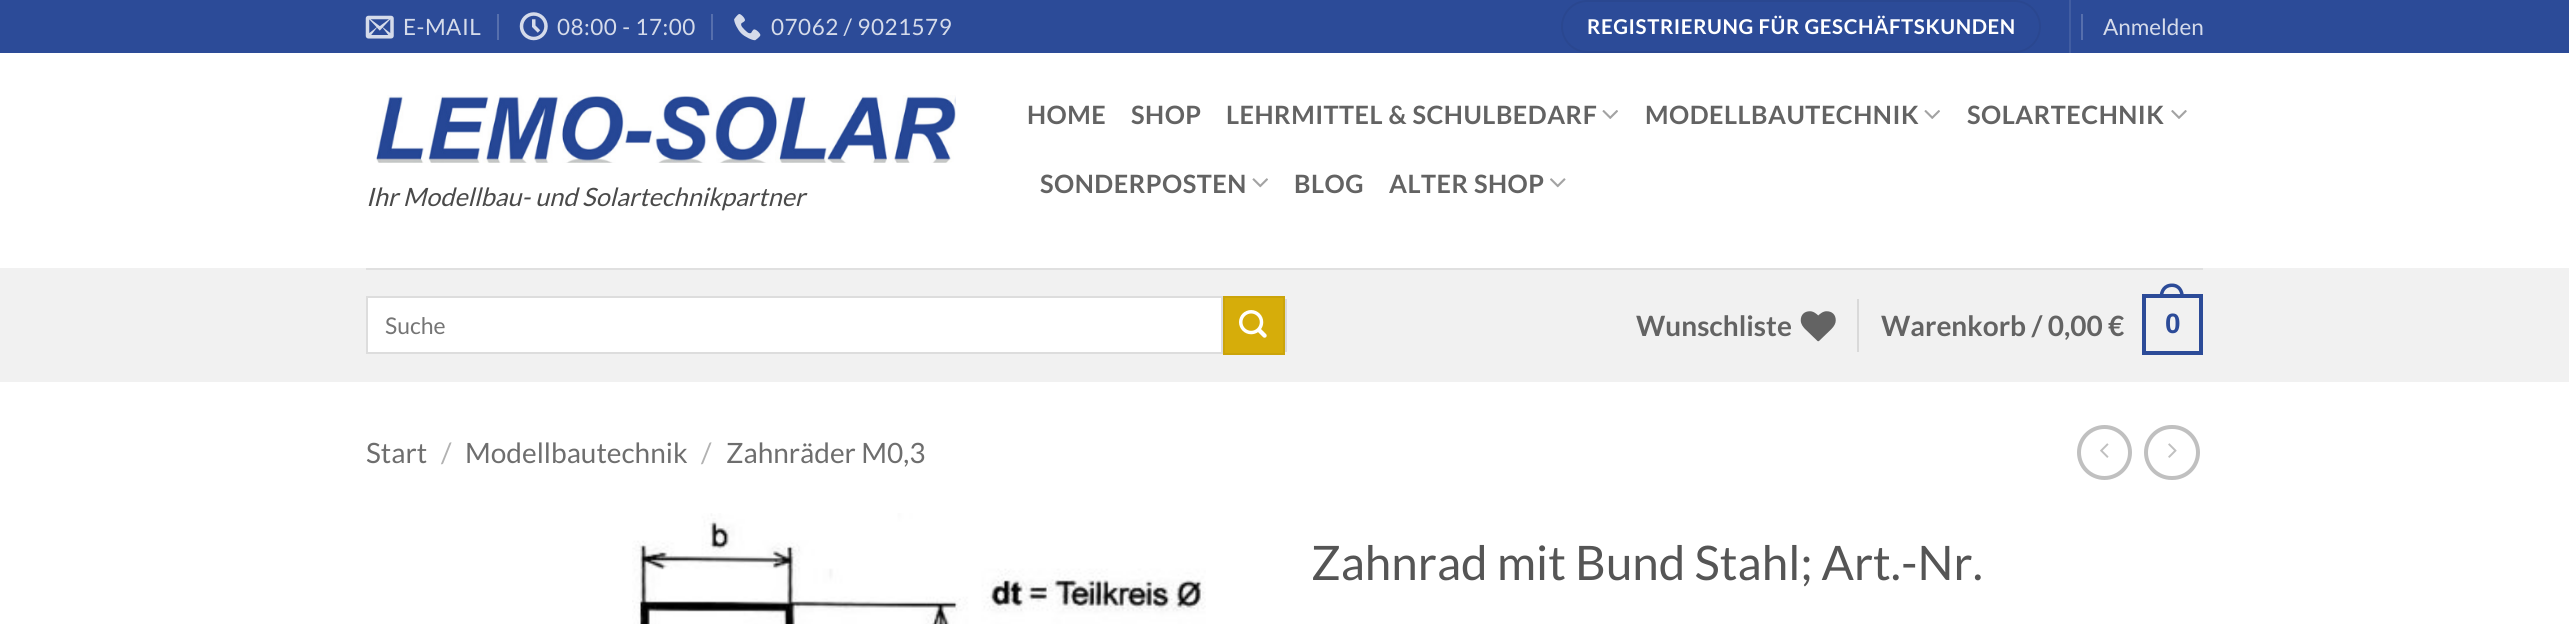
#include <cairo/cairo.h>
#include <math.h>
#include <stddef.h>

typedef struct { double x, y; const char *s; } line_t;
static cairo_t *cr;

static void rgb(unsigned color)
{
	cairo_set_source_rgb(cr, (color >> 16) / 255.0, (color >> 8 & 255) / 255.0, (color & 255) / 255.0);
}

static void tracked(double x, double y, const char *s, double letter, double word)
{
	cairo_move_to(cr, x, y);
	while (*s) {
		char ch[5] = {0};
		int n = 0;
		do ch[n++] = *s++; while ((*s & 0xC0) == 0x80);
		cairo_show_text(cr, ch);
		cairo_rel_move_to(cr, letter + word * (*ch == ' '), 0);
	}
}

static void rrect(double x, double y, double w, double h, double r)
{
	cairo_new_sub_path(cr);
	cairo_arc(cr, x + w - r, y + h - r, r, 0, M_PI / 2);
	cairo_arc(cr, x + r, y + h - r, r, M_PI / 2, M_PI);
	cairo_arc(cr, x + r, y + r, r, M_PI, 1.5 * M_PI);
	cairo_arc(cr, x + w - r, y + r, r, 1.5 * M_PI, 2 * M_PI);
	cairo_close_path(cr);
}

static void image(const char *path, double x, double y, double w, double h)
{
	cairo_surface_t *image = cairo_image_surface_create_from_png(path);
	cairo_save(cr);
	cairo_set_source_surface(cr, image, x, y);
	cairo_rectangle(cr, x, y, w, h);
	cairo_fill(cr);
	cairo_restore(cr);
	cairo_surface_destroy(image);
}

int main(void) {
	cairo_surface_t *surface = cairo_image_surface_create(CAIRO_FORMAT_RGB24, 2569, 624);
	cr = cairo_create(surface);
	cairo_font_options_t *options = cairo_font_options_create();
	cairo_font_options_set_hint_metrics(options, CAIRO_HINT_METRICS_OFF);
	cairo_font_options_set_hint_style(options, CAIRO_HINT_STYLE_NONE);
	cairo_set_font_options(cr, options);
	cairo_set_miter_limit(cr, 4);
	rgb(0xffffff);
	cairo_paint(cr);
	rgb(0x2c4b98);
	cairo_rectangle(cr, 0, 0, 2569, 53);
	cairo_fill(cr);
	image("img/1.png", 365, 15, 29, 24);
	rgb(0x566fad);
	cairo_rectangle(cr, 497, 14, 2, 26);
	cairo_fill(cr);
	image("img/2.png", 519, 12, 29, 29);
	cairo_rectangle(cr, 711, 14, 2, 26);
	cairo_fill(cr);
	image("img/3.png", 734, 14, 27, 27);
	rrect(1562, 1, 478, 51, 25.5);
	rgb(0x2a4790);
	cairo_stroke(cr);
	rgb(0x415da2);
	cairo_rectangle(cr, 2069, 0, 2, 53);
	cairo_fill(cr);
	rgb(0x566fad);
	cairo_rectangle(cr, 2081, 14, 2, 26);
	cairo_fill(cr);
	image("img/4.png", 1602, 110, 16, 9);
	image("img/4.png", 1924, 110, 16, 9);
	image("img/5.png", 2171, 110, 16, 9);
	image("img/6.png", 1252, 178, 16, 10);
	image("img/7.png", 1550, 178, 16, 10);
	image("img/8.png", 376, 95, 580, 68);
	rgb(0xf1f1f1);
	cairo_rectangle(cr, 0, 268, 2569, 114);
	cairo_fill(cr);
	rgb(0xe0e0e0);
	cairo_rectangle(cr, 366, 268, 1837, 2);
	cairo_fill(cr);
	rgb(0xffffff);
	cairo_rectangle(cr, 367, 297, 855, 56);
	cairo_fill_preserve(cr);
	rgb(0xdddddd);
	cairo_stroke(cr);
	rgb(0xd6ad0a);
	cairo_rectangle(cr, 1224, 297, 60, 57);
	cairo_fill_preserve(cr);
	rgb(0xcba40a);
	cairo_stroke(cr);
	image("img/9.png", 1239, 310, 28, 28);
	rgb(0xd9d9d9);
	cairo_rectangle(cr, 1285, 299, 2, 53);
	cairo_fill(cr);
	image("img/10.png", 1800, 311, 36, 31);
	cairo_rectangle(cr, 1857, 299, 2, 53);
	cairo_fill(cr);
	cairo_rectangle(cr, 2144, 296, 57, 57);
	rgb(0x2c4b98);
	cairo_set_line_width(cr, 4);
	cairo_stroke(cr);
	cairo_set_fill_rule(cr, CAIRO_FILL_RULE_EVEN_ODD);
	cairo_new_path(cr);
	cairo_move_to(cr, 2172, 283.5);
	cairo_curve_to(cr, 2180, 283.5, 2184, 290, 2184, 297.5);
	cairo_line_to(cr, 2159.5, 297.5);
	cairo_curve_to(cr, 2159.5, 290, 2163.5, 283.5, 2172, 283.5);
	cairo_close_path(cr);
	cairo_move_to(cr, 2172, 287);
	cairo_curve_to(cr, 2178, 287, 2180.5, 292, 2180.5, 297.5);
	cairo_line_to(cr, 2163, 297.5);
	cairo_curve_to(cr, 2163, 292, 2165.5, 287, 2172, 287);
	cairo_close_path(cr);
	cairo_fill(cr);
	cairo_arc(cr, 2104.5, 452.5, 25.5, 0, 2 * M_PI);
	rgb(0xc0c0c0);
	cairo_stroke(cr);
	image("img/11.png", 2100, 443, 9, 15);
	rrect(2146, 427, 52, 51, 25.5);
	cairo_stroke(cr);
	image("img/12.png", 2168, 443, 9, 15);
	image("img/13.png", 632, 513, 574, 111);
	cairo_select_font_face(cr, "Lato", CAIRO_FONT_SLANT_NORMAL, CAIRO_FONT_WEIGHT_NORMAL);
	cairo_set_font_size(cr, 22.5);
	rgb(0xd5dbea);
	{
		static const line_t items[] = {
			{403, 35, "E-MAIL"},
			{557, 35, "08:00 - 17:00"},
			{771, 35, "07062 / 9021579"},
		};
		for (size_t i = 0; i < sizeof items / sizeof *items; i++) {
			tracked(items[i].x, items[i].y, items[i].s, 0.5, 0);
		}
	}
	cairo_select_font_face(cr, "Lato", CAIRO_FONT_SLANT_NORMAL, CAIRO_FONT_WEIGHT_BOLD);
	cairo_set_font_size(cr, 20.4);
	rgb(0xffffff);
	tracked(1587, 34, "REGISTRIERUNG FÜR GESCHÄFTSKUNDEN", 0.6, 0);
	cairo_select_font_face(cr, "Lato", CAIRO_FONT_SLANT_NORMAL, CAIRO_FONT_WEIGHT_NORMAL);
	cairo_set_font_size(cr, 22.5);
	rgb(0xd5dbea);
	cairo_move_to(cr, 2103, 35);
	cairo_show_text(cr, "Anmelden");
	cairo_select_font_face(cr, "Lato", CAIRO_FONT_SLANT_NORMAL, CAIRO_FONT_WEIGHT_BOLD);
	cairo_set_font_size(cr, 25.25);
	rgb(0x636363);
	{
		static const line_t items[] = {
			{1027, 124, "HOME"},
			{1131, 124, "SHOP"},
			{1226, 124, "LEHRMITTEL & SCHULBEDARF"},
			{1645, 124, "MODELLBAUTECHNIK"},
			{1967, 124, "SOLARTECHNIK"},
			{1040, 193, "SONDERPOSTEN"},
			{1294, 193, "BLOG"},
			{1389, 193, "ALTER SHOP"},
		};
		for (size_t i = 0; i < sizeof items / sizeof *items; i++) {
			tracked(items[i].x, items[i].y, items[i].s, 0.5, 0);
		}
	}
	cairo_select_font_face(cr, "Lato", CAIRO_FONT_SLANT_ITALIC, CAIRO_FONT_WEIGHT_NORMAL);
	rgb(0x4a4a4a);
	cairo_move_to(cr, 366, 206);
	cairo_show_text(cr, "Ihr Modellbau- und Solartechnikpartner");
	cairo_select_font_face(cr, "Lato", CAIRO_FONT_SLANT_NORMAL, CAIRO_FONT_WEIGHT_NORMAL);
	cairo_set_font_size(cr, 23);
	rgb(0x757575);
	cairo_move_to(cr, 385, 334);
	cairo_show_text(cr, "Suche");
	cairo_select_font_face(cr, "Lato", CAIRO_FONT_SLANT_NORMAL, CAIRO_FONT_WEIGHT_BOLD);
	cairo_set_font_size(cr, 28);
	rgb(0x636363);
	cairo_move_to(cr, 1636, 336);
	cairo_show_text(cr, "Wunschliste");
	cairo_move_to(cr, 1881, 336);
	cairo_show_text(cr, "Warenkorb / 0,00 €");
	cairo_select_font_face(cr, "Liberation Sans", CAIRO_FONT_SLANT_NORMAL, CAIRO_FONT_WEIGHT_BOLD);
	rgb(0x2c4b98);
	cairo_move_to(cr, 2165, 333);
	cairo_show_text(cr, "0");
	cairo_select_font_face(cr, "Lato", CAIRO_FONT_SLANT_NORMAL, CAIRO_FONT_WEIGHT_NORMAL);
	rgb(0x6e6e6e);
	cairo_move_to(cr, 366, 463);
	cairo_show_text(cr, "Start");
	rgb(0xb2b2b2);
	cairo_move_to(cr, 441, 463);
	cairo_show_text(cr, "/");
	rgb(0x6e6e6e);
	cairo_move_to(cr, 465, 463);
	cairo_show_text(cr, "Modellbautechnik");
	rgb(0xb2b2b2);
	cairo_move_to(cr, 701, 463);
	cairo_show_text(cr, "/");
	rgb(0x6e6e6e);
	cairo_move_to(cr, 726, 463);
	cairo_show_text(cr, "Zahnräder M0,3");
	cairo_set_font_size(cr, 47.6);
	rgb(0x555555);
	cairo_move_to(cr, 1311, 580);
	cairo_show_text(cr, "Zahnrad mit Bund Stahl; Art.-Nr.");
	cairo_surface_write_to_png(surface, "page.png");
	cairo_font_options_destroy(options);
	cairo_destroy(cr);
	cairo_surface_destroy(surface);
	return 0;
}
